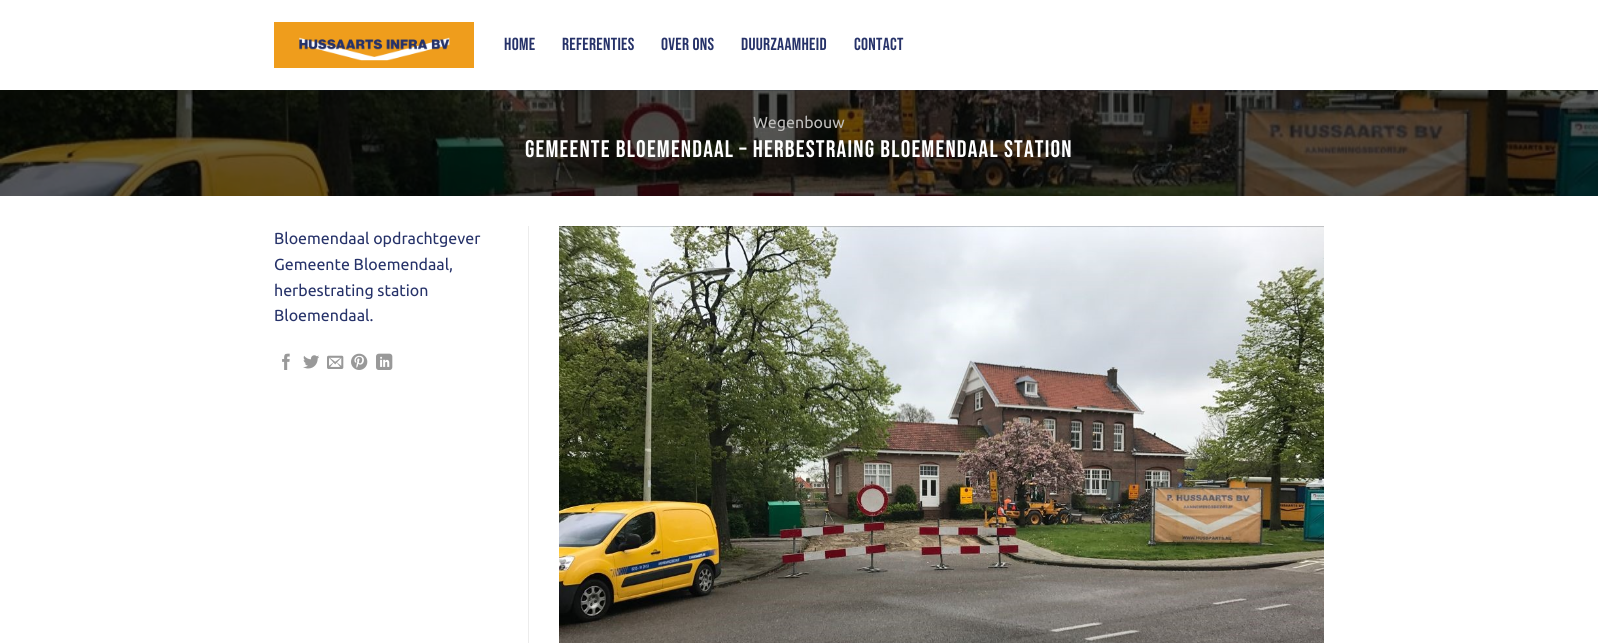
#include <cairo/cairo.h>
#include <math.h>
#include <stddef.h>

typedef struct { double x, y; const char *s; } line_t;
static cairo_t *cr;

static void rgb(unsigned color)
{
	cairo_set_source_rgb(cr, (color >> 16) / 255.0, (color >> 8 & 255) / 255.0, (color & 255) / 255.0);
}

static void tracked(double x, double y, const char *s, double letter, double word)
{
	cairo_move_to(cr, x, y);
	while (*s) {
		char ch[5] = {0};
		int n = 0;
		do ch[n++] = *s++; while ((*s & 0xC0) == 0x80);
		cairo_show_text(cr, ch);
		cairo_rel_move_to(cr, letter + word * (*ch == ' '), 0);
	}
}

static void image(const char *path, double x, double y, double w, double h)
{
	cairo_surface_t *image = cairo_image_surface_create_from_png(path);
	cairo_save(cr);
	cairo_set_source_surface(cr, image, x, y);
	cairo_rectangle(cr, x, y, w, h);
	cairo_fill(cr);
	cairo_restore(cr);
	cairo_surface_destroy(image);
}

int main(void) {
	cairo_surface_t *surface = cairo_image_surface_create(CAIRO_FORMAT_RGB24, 1598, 643);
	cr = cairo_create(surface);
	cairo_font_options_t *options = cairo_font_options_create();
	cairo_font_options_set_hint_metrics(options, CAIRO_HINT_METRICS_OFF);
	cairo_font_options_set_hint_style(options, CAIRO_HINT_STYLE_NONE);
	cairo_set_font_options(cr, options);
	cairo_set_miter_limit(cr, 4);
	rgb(0xffffff);
	cairo_paint(cr);
	image("img/1.png", 274, 22, 200, 46);
	image("img/2.png", 0, 90, 1598, 106);
	cairo_set_source_rgba(cr, 0.149, 0.196, 0.412, 0.1);
	cairo_rectangle(cr, 274, 90, 1050, 1);
	cairo_fill(cr);
	rgb(0xececec);
	cairo_rectangle(cr, 528, 226, 1, 417);
	cairo_fill(cr);
	image("img/3.png", 282, 353, 8, 17);
	image("img/4.png", 303, 355, 16, 14);
	image("img/5.png", 327, 355, 17, 14);
	image("img/6.png", 351, 353, 17, 17);
	image("img/7.png", 376, 353, 17, 17);
	image("img/8.png", 559, 226, 765, 417);
	cairo_select_font_face(cr, "Bebas Neue", CAIRO_FONT_SLANT_NORMAL, CAIRO_FONT_WEIGHT_NORMAL);
	cairo_set_font_size(cr, 17.5);
	rgb(0x263269);
	{
		static const line_t items[] = {
			{504, 50, "HOME"},
			{562, 50, "REFERENTIES"},
			{661, 50, "OVER ONS"},
			{741, 50, "DUURZAAMHEID"},
			{854, 50, "CONTACT"},
		};
		for (size_t i = 0; i < sizeof items / sizeof *items; i++) {
			tracked(items[i].x, items[i].y, items[i].s, 0.3, 0);
		}
	}
	cairo_select_font_face(cr, "Ubuntu", CAIRO_FONT_SLANT_NORMAL, CAIRO_FONT_WEIGHT_NORMAL);
	cairo_set_font_size(cr, 16);
	rgb(0xbfbebc);
	cairo_move_to(cr, 753, 128);
	cairo_show_text(cr, "Wegenbouw");
	cairo_select_font_face(cr, "Bebas Neue", CAIRO_FONT_SLANT_NORMAL, CAIRO_FONT_WEIGHT_NORMAL);
	cairo_set_font_size(cr, 24);
	rgb(0xffffff);
	tracked(525, 157, "GEMEENTE BLOEMENDAAL – HERBESTRAING BLOEMENDAAL STATION", 1.2, 0);
	cairo_select_font_face(cr, "Ubuntu", CAIRO_FONT_SLANT_NORMAL, CAIRO_FONT_WEIGHT_NORMAL);
	cairo_set_font_size(cr, 16);
	rgb(0x263269);
	{
		static const line_t items[] = {
			{274, 244, "Bloemendaal opdrachtgever"},
			{274, 270, "Gemeente Bloemendaal,"},
			{274, 296, "herbestrating station"},
			{274, 321, "Bloemendaal."},
		};
		for (size_t i = 0; i < sizeof items / sizeof *items; i++) {
			cairo_move_to(cr, items[i].x, items[i].y);
			cairo_show_text(cr, items[i].s);
		}
	}
	cairo_surface_write_to_png(surface, "page.png");
	cairo_font_options_destroy(options);
	cairo_destroy(cr);
	cairo_surface_destroy(surface);
	return 0;
}
